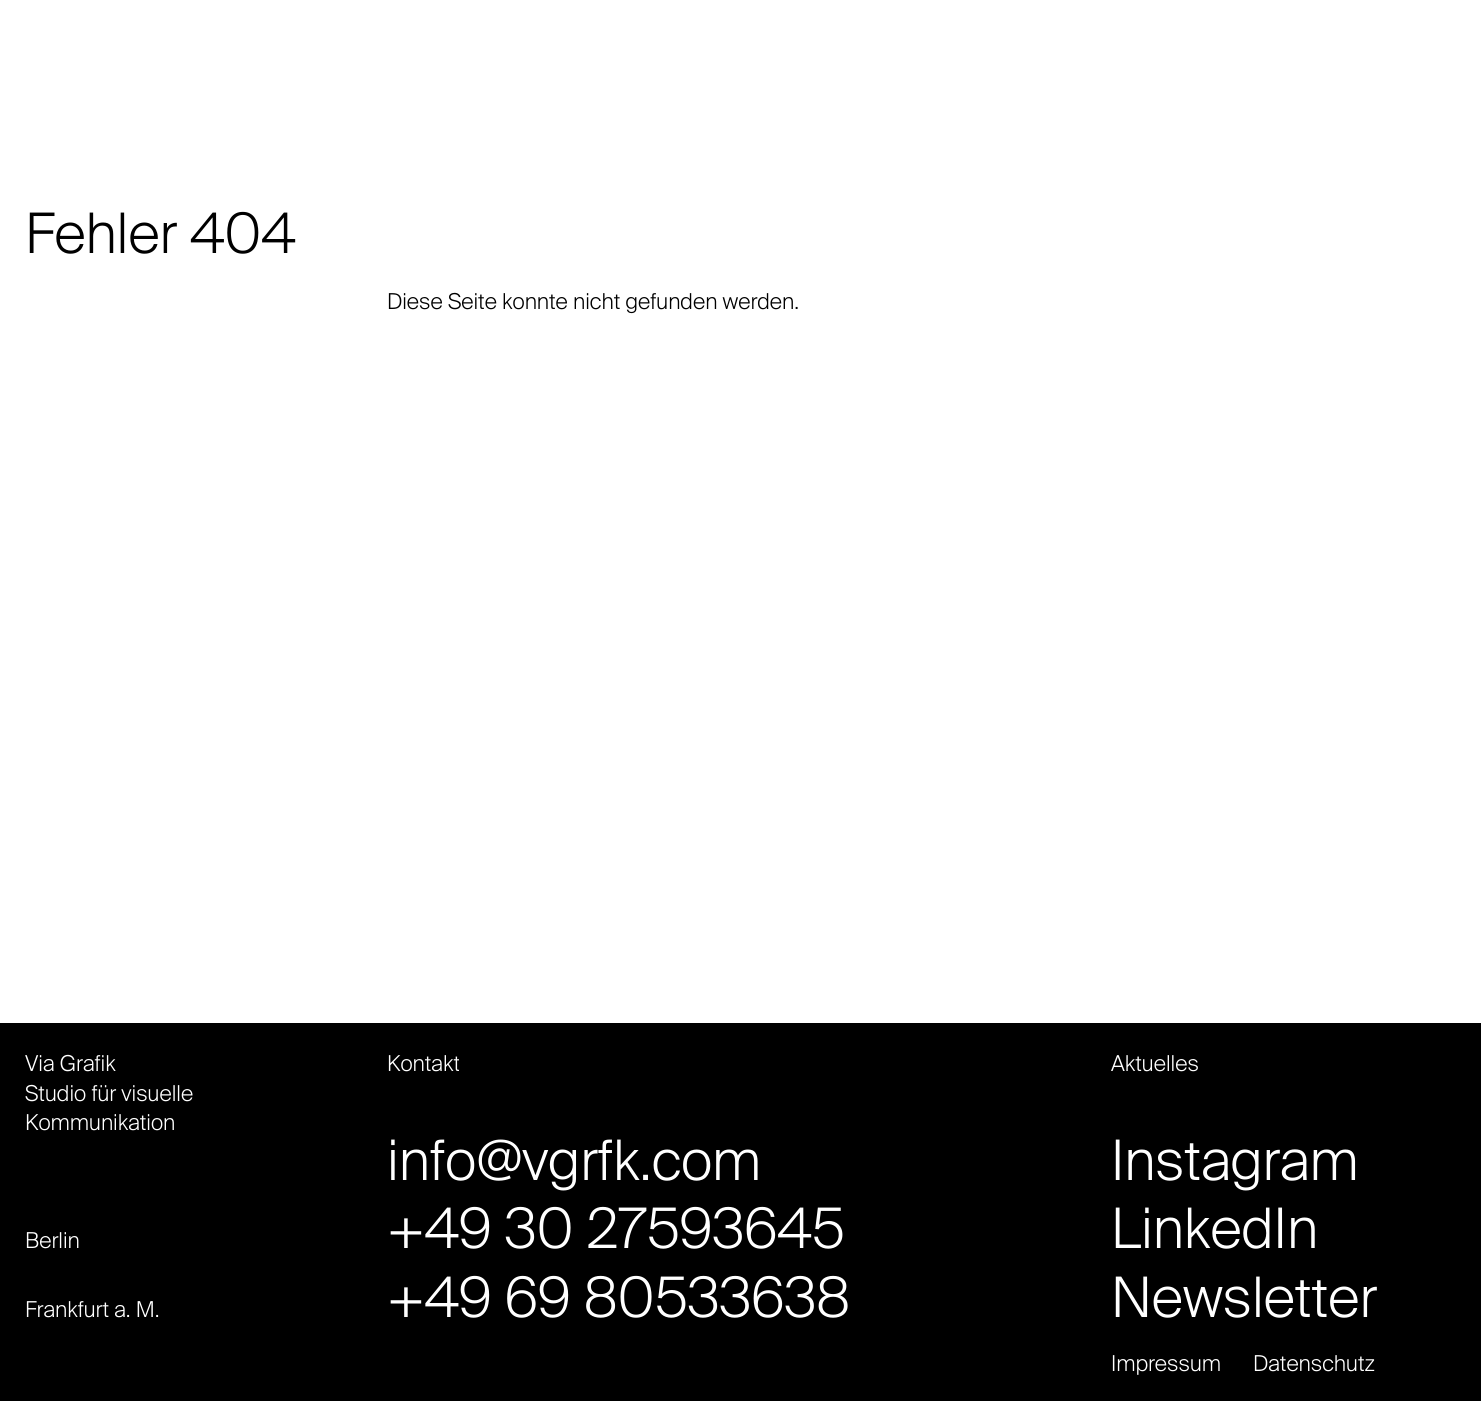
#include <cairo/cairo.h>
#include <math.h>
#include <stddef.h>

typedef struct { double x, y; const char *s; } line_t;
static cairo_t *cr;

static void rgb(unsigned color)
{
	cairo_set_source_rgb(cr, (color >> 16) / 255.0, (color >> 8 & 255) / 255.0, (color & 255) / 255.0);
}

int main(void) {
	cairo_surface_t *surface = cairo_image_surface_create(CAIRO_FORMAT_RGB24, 1481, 1401);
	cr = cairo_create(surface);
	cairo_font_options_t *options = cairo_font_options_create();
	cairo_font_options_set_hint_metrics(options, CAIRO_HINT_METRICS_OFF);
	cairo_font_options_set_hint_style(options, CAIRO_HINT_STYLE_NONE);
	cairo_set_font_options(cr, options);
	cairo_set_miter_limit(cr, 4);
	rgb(0xffffff);
	cairo_paint(cr);
	rgb(0x000000);
	cairo_rectangle(cr, 0, 1023, 1481, 378);
	cairo_fill(cr);
	cairo_select_font_face(cr, "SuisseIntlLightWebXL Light", CAIRO_FONT_SLANT_NORMAL, CAIRO_FONT_WEIGHT_NORMAL);
	cairo_set_font_size(cr, 55.75);
	cairo_move_to(cr, 25, 253);
	cairo_show_text(cr, "Fehler 404");
	cairo_set_font_size(cr, 21.9);
	cairo_move_to(cr, 387, 309);
	cairo_show_text(cr, "Diese Seite konnte nicht gefunden werden.");
	rgb(0xffffff);
	{
		static const line_t items[] = {
			{25, 1071, "Via Grafik"},
			{25, 1101, "Studio für visuelle"},
			{25, 1130, "Kommunikation"},
			{387, 1071, "Kontakt"},
			{1111, 1071, "Aktuelles"},
		};
		for (size_t i = 0; i < sizeof items / sizeof *items; i++) {
			cairo_move_to(cr, items[i].x, items[i].y);
			cairo_show_text(cr, items[i].s);
		}
	}
	cairo_set_font_size(cr, 55.75);
	cairo_move_to(cr, 387, 1180);
	cairo_show_text(cr, "info@vgrfk.com");
	cairo_move_to(cr, 1111, 1180);
	cairo_show_text(cr, "Instagram");
	cairo_set_font_size(cr, 21.9);
	cairo_move_to(cr, 25, 1248);
	cairo_show_text(cr, "Berlin");
	cairo_set_font_size(cr, 55.75);
	cairo_move_to(cr, 387, 1248);
	cairo_show_text(cr, "+49 30 27593645");
	cairo_move_to(cr, 1111, 1248);
	cairo_show_text(cr, "LinkedIn");
	cairo_set_font_size(cr, 21.9);
	cairo_move_to(cr, 25, 1317);
	cairo_show_text(cr, "Frankfurt a. M.");
	cairo_set_font_size(cr, 55.75);
	cairo_move_to(cr, 387, 1317);
	cairo_show_text(cr, "+49 69 80533638");
	cairo_move_to(cr, 1111, 1317);
	cairo_show_text(cr, "Newsletter");
	cairo_set_font_size(cr, 21.9);
	cairo_move_to(cr, 1111, 1371);
	cairo_show_text(cr, "Impressum");
	cairo_move_to(cr, 1253, 1371);
	cairo_show_text(cr, "Datenschutz");
	cairo_surface_write_to_png(surface, "page.png");
	cairo_font_options_destroy(options);
	cairo_destroy(cr);
	cairo_surface_destroy(surface);
	return 0;
}
